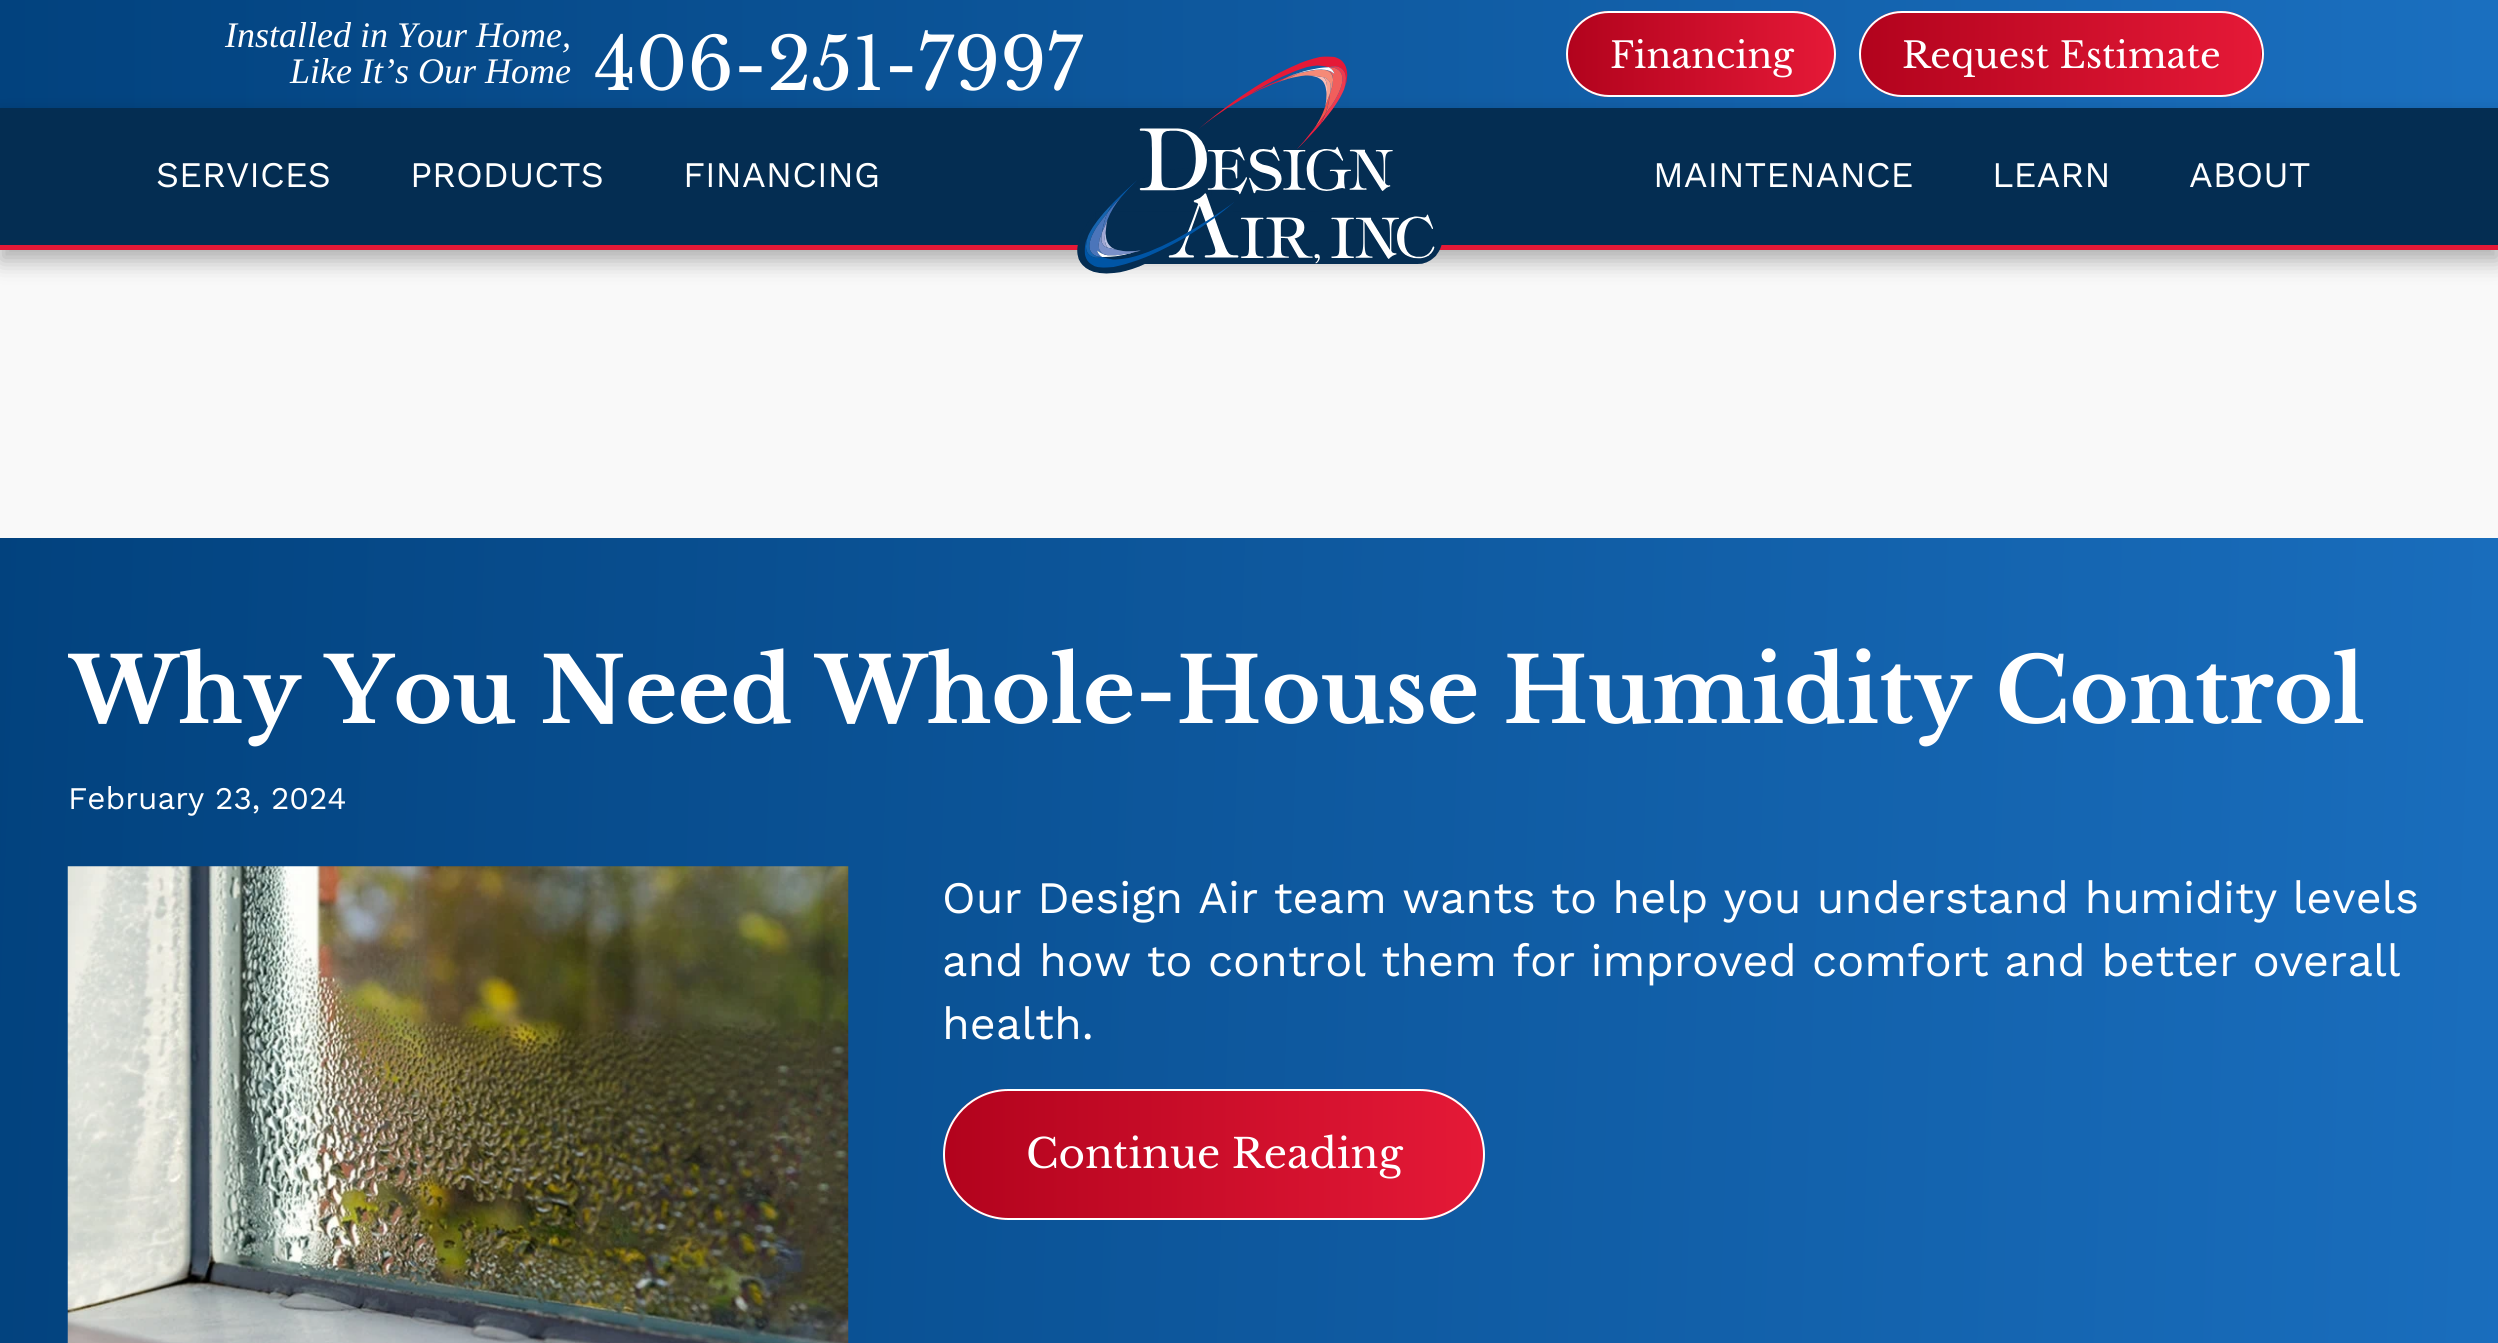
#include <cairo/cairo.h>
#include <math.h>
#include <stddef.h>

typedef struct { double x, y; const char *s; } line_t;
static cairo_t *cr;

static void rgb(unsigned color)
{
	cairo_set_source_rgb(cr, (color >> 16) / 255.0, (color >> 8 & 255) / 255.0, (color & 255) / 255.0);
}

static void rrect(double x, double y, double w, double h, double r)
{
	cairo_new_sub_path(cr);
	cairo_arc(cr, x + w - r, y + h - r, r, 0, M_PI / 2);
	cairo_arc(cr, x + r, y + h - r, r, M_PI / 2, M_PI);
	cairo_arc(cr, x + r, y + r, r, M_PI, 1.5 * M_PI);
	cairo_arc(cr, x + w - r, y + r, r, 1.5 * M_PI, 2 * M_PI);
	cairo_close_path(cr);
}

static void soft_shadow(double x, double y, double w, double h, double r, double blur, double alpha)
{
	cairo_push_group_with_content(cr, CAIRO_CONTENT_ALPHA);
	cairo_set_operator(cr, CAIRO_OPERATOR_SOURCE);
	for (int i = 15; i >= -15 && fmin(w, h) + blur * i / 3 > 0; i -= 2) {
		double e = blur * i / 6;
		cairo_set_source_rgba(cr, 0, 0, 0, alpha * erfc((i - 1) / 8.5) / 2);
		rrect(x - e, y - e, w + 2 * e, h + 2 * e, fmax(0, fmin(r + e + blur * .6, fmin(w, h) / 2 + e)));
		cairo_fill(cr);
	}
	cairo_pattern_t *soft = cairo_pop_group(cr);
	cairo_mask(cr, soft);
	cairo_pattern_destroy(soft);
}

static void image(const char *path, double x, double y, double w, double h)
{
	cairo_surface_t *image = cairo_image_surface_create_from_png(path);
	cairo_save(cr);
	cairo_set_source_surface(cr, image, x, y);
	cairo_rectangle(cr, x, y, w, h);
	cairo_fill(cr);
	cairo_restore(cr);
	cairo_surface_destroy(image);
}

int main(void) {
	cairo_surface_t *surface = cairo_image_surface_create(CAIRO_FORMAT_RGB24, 2498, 1343);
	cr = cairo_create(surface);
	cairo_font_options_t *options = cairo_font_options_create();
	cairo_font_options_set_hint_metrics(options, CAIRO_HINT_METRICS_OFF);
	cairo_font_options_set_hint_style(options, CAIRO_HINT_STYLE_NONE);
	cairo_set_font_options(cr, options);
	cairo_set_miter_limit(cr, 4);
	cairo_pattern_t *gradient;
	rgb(0xffffff);
	cairo_paint(cr);
	gradient = cairo_pattern_create_linear(0, 54, 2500, 54);
	cairo_pattern_add_color_stop_rgba(gradient, 0, 0.008, 0.259, 0.494, 1);
	cairo_pattern_add_color_stop_rgba(gradient, 0.99, 0.102, 0.435, 0.749, 1);
	cairo_set_source(cr, gradient);
	cairo_pattern_destroy(gradient);
	cairo_rectangle(cr, 0, 0, 2498, 108);
	cairo_fill(cr);
	cairo_save(cr);
	rrect(1566, 11, 270, 86, 43);
	cairo_clip(cr);
	gradient = cairo_pattern_create_linear(1568, 54, 1834, 54);
	cairo_pattern_add_color_stop_rgba(gradient, 0, 0.698, 0.012, 0.114, 1);
	cairo_pattern_add_color_stop_rgba(gradient, 1, 0.898, 0.098, 0.216, 1);
	cairo_set_source(cr, gradient);
	cairo_pattern_destroy(gradient);
	cairo_rectangle(cr, 1568, 11, 266, 86);
	cairo_fill(cr);
	cairo_restore(cr);
	rrect(1567, 12, 268, 84, 42);
	rgb(0xffffff);
	cairo_stroke(cr);
	cairo_save(cr);
	rrect(1859, 11, 405, 86, 43);
	cairo_clip(cr);
	gradient = cairo_pattern_create_linear(1861, 54, 2261, 54);
	cairo_pattern_add_color_stop_rgba(gradient, 0, 0.698, 0.012, 0.114, 1);
	cairo_pattern_add_color_stop_rgba(gradient, 1, 0.898, 0.098, 0.216, 1);
	cairo_set_source(cr, gradient);
	cairo_pattern_destroy(gradient);
	cairo_rectangle(cr, 1861, 11, 400, 86);
	cairo_fill(cr);
	gradient = cairo_pattern_create_linear(2261, 54, 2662, 54);
	cairo_pattern_add_color_stop_rgba(gradient, 0, 0.698, 0.012, 0.114, 1);
	cairo_pattern_add_color_stop_rgba(gradient, 1, 0.898, 0.098, 0.216, 1);
	cairo_set_source(cr, gradient);
	cairo_pattern_destroy(gradient);
	cairo_rectangle(cr, 2261, 38, 3, 32);
	cairo_fill(cr);
	cairo_restore(cr);
	rrect(1860, 12, 403, 84, 42);
	cairo_stroke(cr);
	rgb(0xf9f9f9);
	cairo_rectangle(cr, 0, 250, 2498, 288);
	cairo_fill(cr);
	rgb(0x000000);
	soft_shadow(0, 119, 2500, 142, 0, 11, 0.3);
	rgb(0x042d52);
	cairo_rectangle(cr, 0, 108, 2498, 137);
	cairo_fill(cr);
	rgb(0xe51937);
	cairo_rectangle(cr, 0, 245, 2498, 5);
	cairo_fill(cr);
	gradient = cairo_pattern_create_linear(-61, 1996, 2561, 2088);
	cairo_pattern_add_color_stop_rgba(gradient, 0, 0.008, 0.259, 0.494, 1);
	cairo_pattern_add_color_stop_rgba(gradient, 1, 0.102, 0.435, 0.749, 1);
	cairo_set_source(cr, gradient);
	cairo_pattern_destroy(gradient);
	cairo_rectangle(cr, 0, 538, 2498, 805);
	cairo_fill(cr);
	image("img/2.png", 67, 866, 782, 477);
	cairo_save(cr);
	rrect(943, 1089, 542, 131, 65.5);
	cairo_clip(cr);
	gradient = cairo_pattern_create_linear(945, 1154, 1483, 1154);
	cairo_pattern_add_color_stop_rgba(gradient, 0, 0.698, 0.012, 0.114, 1);
	cairo_pattern_add_color_stop_rgba(gradient, 1, 0.898, 0.098, 0.216, 1);
	cairo_set_source(cr, gradient);
	cairo_pattern_destroy(gradient);
	cairo_rectangle(cr, 945, 1089, 538, 131);
	cairo_fill(cr);
	cairo_restore(cr);
	rrect(944, 1090, 540, 129, 64.5);
	rgb(0xffffff);
	cairo_stroke(cr);
	cairo_select_font_face(cr, "Liberation Serif", CAIRO_FONT_SLANT_ITALIC, CAIRO_FONT_WEIGHT_NORMAL);
	cairo_set_font_size(cr, 36);
	cairo_move_to(cr, 225, 47);
	cairo_show_text(cr, "Installed in Your Home,");
	cairo_move_to(cr, 290, 83);
	cairo_show_text(cr, "Like It’s Our Home");
	cairo_select_font_face(cr, "Libre Baskerville", CAIRO_FONT_SLANT_NORMAL, CAIRO_FONT_WEIGHT_NORMAL);
	cairo_set_font_size(cr, 72);
	cairo_move_to(cr, 594, 90);
	cairo_show_text(cr, "406-251-7997");
	cairo_set_font_size(cr, 36);
	cairo_move_to(cr, 1610, 68);
	cairo_show_text(cr, "Financing");
	cairo_move_to(cr, 1902, 68);
	cairo_show_text(cr, "Request Estimate");
	cairo_select_font_face(cr, "Work Sans", CAIRO_FONT_SLANT_NORMAL, CAIRO_FONT_WEIGHT_NORMAL);
	{
		static const line_t items[] = {
			{156, 187, "SERVICES"},
			{410, 187, "PRODUCTS"},
			{683, 187, "FINANCING"},
		};
		for (size_t i = 0; i < sizeof items / sizeof *items; i++) {
			cairo_move_to(cr, items[i].x, items[i].y);
			cairo_show_text(cr, items[i].s);
		}
	}
	image("img/1.png", 1077, 56, 365, 218);
	{
		static const line_t items[] = {
			{1653, 187, "MAINTENANCE"},
			{1992, 187, "LEARN"},
			{2189, 187, "ABOUT"},
		};
		for (size_t i = 0; i < sizeof items / sizeof *items; i++) {
			cairo_move_to(cr, items[i].x, items[i].y);
			cairo_show_text(cr, items[i].s);
		}
	}
	cairo_save(cr);
	cairo_rectangle(cr, 68, 628, 2364, 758);
	cairo_clip(cr);
	cairo_select_font_face(cr, "Libre Baskerville", CAIRO_FONT_SLANT_NORMAL, CAIRO_FONT_WEIGHT_BOLD);
	cairo_set_font_size(cr, 90);
	cairo_move_to(cr, 68, 723);
	cairo_show_text(cr, "Why You Need Whole-House Humidity Control");
	cairo_restore(cr);
	cairo_set_font_size(cr, 31.5);
	cairo_move_to(cr, 68, 809);
	cairo_show_text(cr, "February 23, 2024");
	cairo_set_font_size(cr, 45);
	{
		static const line_t items[] = {
			{942, 913, "Our Design Air team wants to help you understand humidity levels"},
			{942, 976, "and how to control them for improved comfort and better overall"},
			{942, 1039, "health."},
		};
		for (size_t i = 0; i < sizeof items / sizeof *items; i++) {
			cairo_move_to(cr, items[i].x, items[i].y);
			cairo_show_text(cr, items[i].s);
		}
	}
	cairo_select_font_face(cr, "Libre Baskerville", CAIRO_FONT_SLANT_NORMAL, CAIRO_FONT_WEIGHT_NORMAL);
	cairo_set_font_size(cr, 40.5);
	cairo_move_to(cr, 1026, 1168);
	cairo_show_text(cr, "Continue Reading");
	cairo_surface_write_to_png(surface, "page.png");
	cairo_font_options_destroy(options);
	cairo_destroy(cr);
	cairo_surface_destroy(surface);
	return 0;
}
